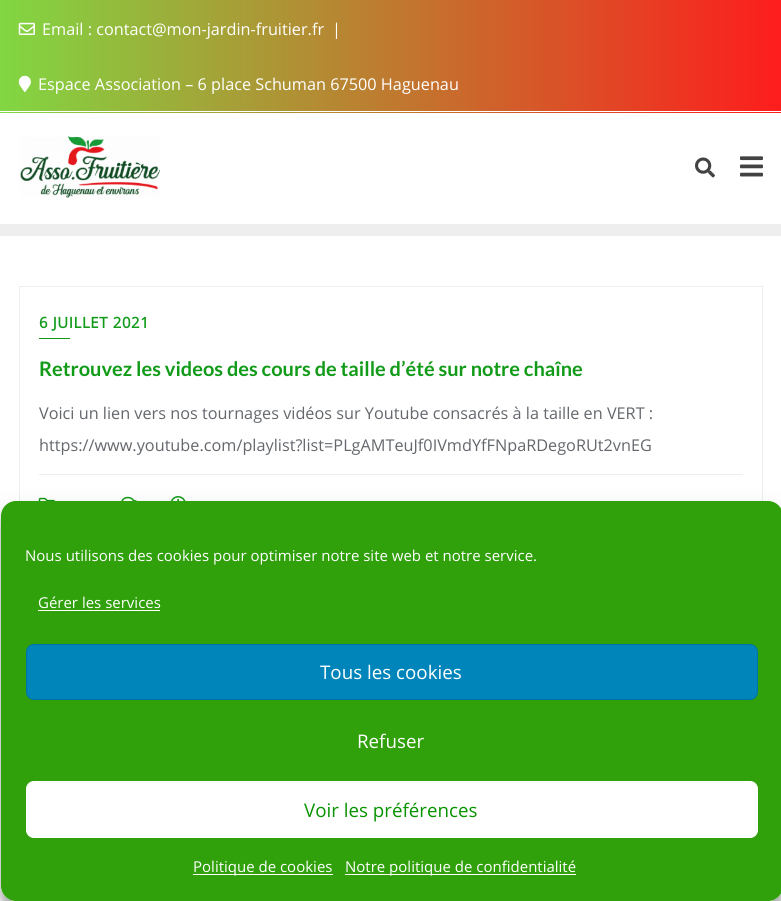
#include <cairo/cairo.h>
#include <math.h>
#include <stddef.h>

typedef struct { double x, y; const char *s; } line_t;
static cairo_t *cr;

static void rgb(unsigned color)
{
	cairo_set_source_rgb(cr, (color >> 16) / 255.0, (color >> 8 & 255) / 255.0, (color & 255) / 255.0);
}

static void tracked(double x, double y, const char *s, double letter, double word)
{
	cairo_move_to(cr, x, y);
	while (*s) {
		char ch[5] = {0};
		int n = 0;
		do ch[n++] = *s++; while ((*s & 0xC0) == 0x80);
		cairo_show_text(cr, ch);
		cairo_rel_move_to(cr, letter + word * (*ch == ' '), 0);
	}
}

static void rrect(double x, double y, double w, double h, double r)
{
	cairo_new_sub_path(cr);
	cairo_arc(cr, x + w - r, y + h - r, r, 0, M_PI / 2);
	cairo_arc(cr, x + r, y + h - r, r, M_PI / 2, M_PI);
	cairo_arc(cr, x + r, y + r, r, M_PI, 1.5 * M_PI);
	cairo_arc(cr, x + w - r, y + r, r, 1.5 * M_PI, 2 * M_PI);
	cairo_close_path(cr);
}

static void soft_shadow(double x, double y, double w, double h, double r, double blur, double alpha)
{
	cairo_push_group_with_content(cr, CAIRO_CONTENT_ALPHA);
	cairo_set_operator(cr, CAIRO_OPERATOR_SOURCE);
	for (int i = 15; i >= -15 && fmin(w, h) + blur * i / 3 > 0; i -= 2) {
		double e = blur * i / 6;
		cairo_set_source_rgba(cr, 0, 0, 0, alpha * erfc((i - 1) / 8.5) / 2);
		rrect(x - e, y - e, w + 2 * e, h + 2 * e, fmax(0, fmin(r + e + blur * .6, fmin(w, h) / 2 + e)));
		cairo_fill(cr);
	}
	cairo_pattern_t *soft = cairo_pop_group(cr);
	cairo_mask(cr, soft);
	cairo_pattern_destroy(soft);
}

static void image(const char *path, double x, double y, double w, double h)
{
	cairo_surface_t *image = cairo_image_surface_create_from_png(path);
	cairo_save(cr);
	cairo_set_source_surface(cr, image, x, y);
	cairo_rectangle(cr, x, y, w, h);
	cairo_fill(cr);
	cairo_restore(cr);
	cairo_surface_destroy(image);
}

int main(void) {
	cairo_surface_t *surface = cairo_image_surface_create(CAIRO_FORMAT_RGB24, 781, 901);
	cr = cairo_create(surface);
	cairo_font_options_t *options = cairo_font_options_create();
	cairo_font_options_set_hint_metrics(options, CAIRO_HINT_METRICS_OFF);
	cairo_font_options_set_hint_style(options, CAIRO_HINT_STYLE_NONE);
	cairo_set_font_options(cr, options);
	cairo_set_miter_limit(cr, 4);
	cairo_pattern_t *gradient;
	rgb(0xffffff);
	cairo_paint(cr);
	rgb(0xeeeeee);
	cairo_rectangle(cr, 0, 224, 781, 12);
	cairo_fill(cr);
	gradient = cairo_pattern_create_linear(0, 56, 781, 56);
	cairo_pattern_add_color_stop_rgba(gradient, 0, 0.506, 0.843, 0.259, 1);
	cairo_pattern_add_color_stop_rgba(gradient, 1, 0.992, 0.114, 0.114, 1);
	cairo_set_source(cr, gradient);
	cairo_pattern_destroy(gradient);
	cairo_rectangle(cr, 0, 0, 781, 113);
	cairo_fill(cr);
	rgb(0xffffff);
	cairo_rectangle(cr, 0, 111, 781, 1);
	cairo_fill(cr);
	image("img/1.png", 18, 22, 17, 13);
	image("img/2.png", 18, 75, 13, 17);
	image("img/3.png", 20, 136, 140, 62);
	image("img/4.png", 695, 157, 20, 21);
	image("img/5.png", 740, 156, 23, 21);
	cairo_rectangle(cr, 19.5, 286.5, 743, 253);
	rgb(0xeeeeee);
	cairo_set_line_width(cr, 1);
	cairo_stroke(cr);
	rgb(0x119b18);
	cairo_rectangle(cr, 39, 338, 31, 1);
	cairo_fill(cr);
	rgb(0xeeeeee);
	cairo_rectangle(cr, 39, 474, 704, 1);
	cairo_fill(cr);
	image("img/6.png", 38, 497, 17, 4);
	image("img/7.png", 121, 496, 16, 5);
	image("img/8.png", 170, 496, 16, 5);
	cairo_save(cr);
	cairo_set_fill_rule(cr, CAIRO_FILL_RULE_EVEN_ODD);
	cairo_new_path(cr);
	cairo_move_to(cr, 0, 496);
	cairo_line_to(cr, 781, 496);
	cairo_line_to(cr, 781, 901);
	cairo_line_to(cr, 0, 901);
	cairo_close_path(cr);
	cairo_move_to(cr, 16, 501);
	cairo_line_to(cr, 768, 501);
	cairo_curve_to(cr, 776.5, 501, 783, 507.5, 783, 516);
	cairo_line_to(cr, 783, 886);
	cairo_curve_to(cr, 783, 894.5, 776.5, 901, 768, 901);
	cairo_line_to(cr, 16, 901);
	cairo_curve_to(cr, 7.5, 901, 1, 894.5, 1, 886);
	cairo_line_to(cr, 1, 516);
	cairo_curve_to(cr, 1, 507.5, 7.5, 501, 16, 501);
	cairo_close_path(cr);
	cairo_clip(cr);
	rgb(0x000000);
	soft_shadow(1, 509, 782, 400, 15, 4, 0.23);
	cairo_restore(cr);
	cairo_save(cr);
	cairo_set_fill_rule(cr, CAIRO_FILL_RULE_EVEN_ODD);
	cairo_new_path(cr);
	cairo_move_to(cr, 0, 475);
	cairo_line_to(cr, 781, 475);
	cairo_line_to(cr, 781, 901);
	cairo_line_to(cr, 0, 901);
	cairo_close_path(cr);
	cairo_move_to(cr, 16, 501);
	cairo_line_to(cr, 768, 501);
	cairo_curve_to(cr, 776.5, 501, 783, 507.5, 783, 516);
	cairo_line_to(cr, 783, 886);
	cairo_curve_to(cr, 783, 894.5, 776.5, 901, 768, 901);
	cairo_line_to(cr, 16, 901);
	cairo_curve_to(cr, 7.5, 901, 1, 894.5, 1, 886);
	cairo_line_to(cr, 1, 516);
	cairo_curve_to(cr, 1, 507.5, 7.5, 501, 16, 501);
	cairo_close_path(cr);
	cairo_clip(cr);
	rgb(0x000000);
	soft_shadow(1, 514, 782, 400, 15, 12.5, 0.19);
	cairo_restore(cr);
	rgb(0x30a00b);
	rrect(1, 501, 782, 400, 15);
	cairo_fill(cr);
	rgb(0xffffff);
	cairo_rectangle(cr, 38, 610, 122, 1);
	cairo_fill(cr);
	rgb(0x0085ba);
	rrect(26.5, 644.5, 731, 55, 7.5);
	cairo_fill_preserve(cr);
	rgb(0x0073aa);
	cairo_stroke(cr);
	rgb(0xffffff);
	rrect(26.5, 781.5, 731, 56, 7.5);
	cairo_fill_preserve(cr);
	cairo_stroke(cr);
	cairo_rectangle(cr, 193, 874, 140, 1);
	cairo_fill(cr);
	cairo_rectangle(cr, 345, 874, 231, 1);
	cairo_fill(cr);
	cairo_select_font_face(cr, "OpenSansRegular", CAIRO_FONT_SLANT_NORMAL, CAIRO_FONT_WEIGHT_NORMAL);
	cairo_set_font_size(cr, 16.25);
	{
		static const line_t items[] = {
			{42, 35, "Email : contact@mon-jardin-fruitier.fr"},
			{332, 35, "|"},
			{38, 90, "Espace Association – 6 place Schuman 67500 Haguenau"},
		};
		for (size_t i = 0; i < sizeof items / sizeof *items; i++) {
			cairo_move_to(cr, items[i].x, items[i].y);
			cairo_show_text(cr, items[i].s);
		}
	}
	cairo_select_font_face(cr, "OpenSansRegular", CAIRO_FONT_SLANT_NORMAL, CAIRO_FONT_WEIGHT_BOLD);
	cairo_set_font_size(cr, 15);
	rgb(0x119b18);
	tracked(39, 328, "6 JUILLET 2021", 0.6, 0);
	cairo_select_font_face(cr, "Lato", CAIRO_FONT_SLANT_NORMAL, CAIRO_FONT_WEIGHT_BOLD);
	cairo_set_font_size(cr, 20);
	cairo_move_to(cr, 39, 376);
	cairo_show_text(cr, "Retrouvez les videos des cours de taille d’été sur notre chaîne");
	cairo_select_font_face(cr, "OpenSansRegular", CAIRO_FONT_SLANT_NORMAL, CAIRO_FONT_WEIGHT_NORMAL);
	cairo_set_font_size(cr, 16.25);
	rgb(0x64686d);
	cairo_move_to(cr, 39, 419);
	cairo_show_text(cr, "Voici un lien vers nos tournages vidéos sur Youtube consacrés à la taille en VERT :");
	cairo_move_to(cr, 39, 451);
	cairo_show_text(cr, "https://www.youtube.com/playlist?list=PLgAMTeuJf0IVmdYfFNpaRDegoRUt2vnEG");
	cairo_set_font_size(cr, 15);
	rgb(0xffffff);
	cairo_move_to(cr, 25, 561);
	cairo_show_text(cr, "Nous utilisons des cookies pour optimiser notre site web et notre service.");
	cairo_move_to(cr, 38, 608);
	cairo_show_text(cr, "Gérer les services");
	cairo_set_font_size(cr, 18.75);
	cairo_move_to(cr, 320, 679);
	cairo_show_text(cr, "Tous les cookies");
	cairo_move_to(cr, 357, 748);
	cairo_show_text(cr, "Refuser");
	rgb(0x079300);
	cairo_move_to(cr, 304, 817);
	cairo_show_text(cr, "Voir les préférences");
	cairo_set_font_size(cr, 15);
	rgb(0xffffff);
	cairo_move_to(cr, 193, 872);
	cairo_show_text(cr, "Politique de cookies");
	cairo_move_to(cr, 345, 872);
	cairo_show_text(cr, "Notre politique de confidentialité");
	cairo_surface_write_to_png(surface, "page.png");
	cairo_font_options_destroy(options);
	cairo_destroy(cr);
	cairo_surface_destroy(surface);
	return 0;
}
